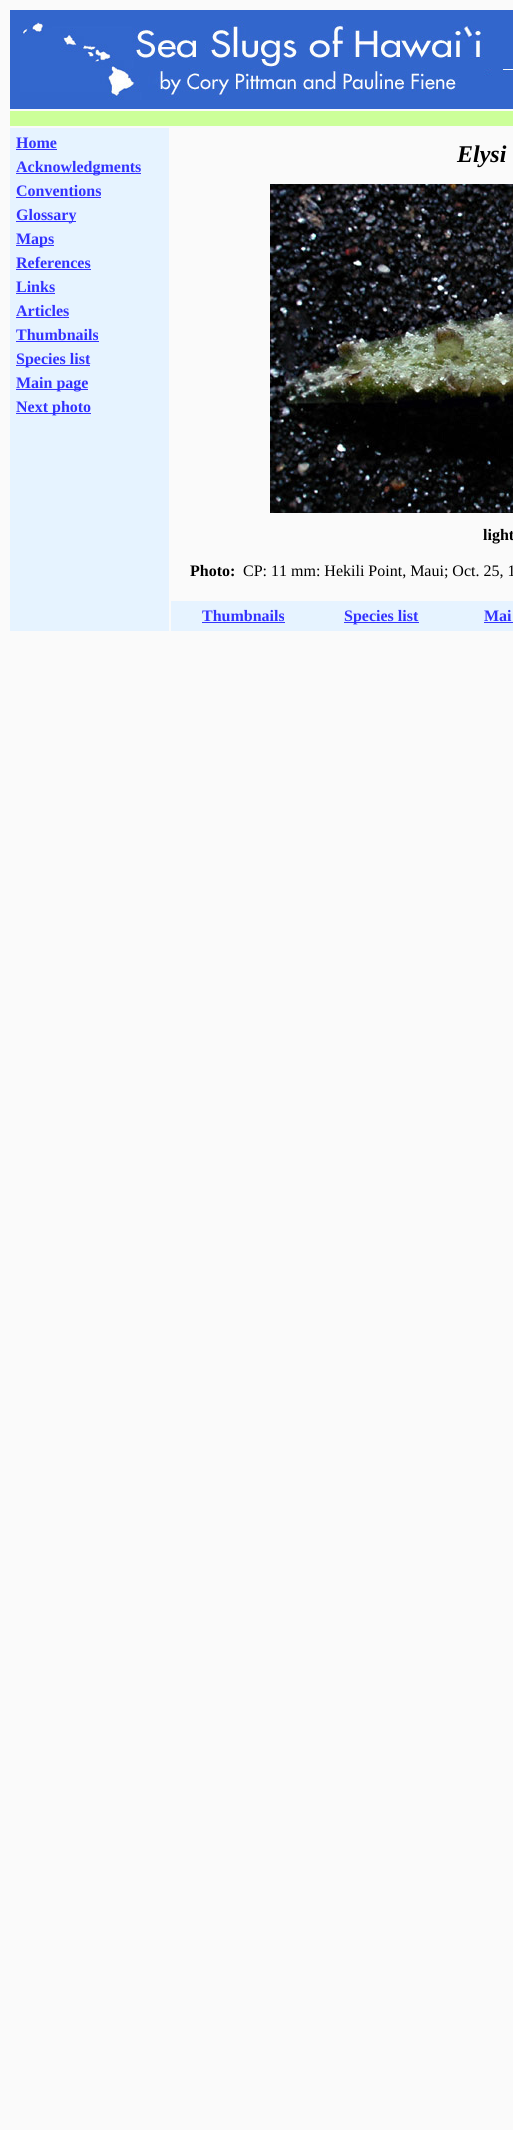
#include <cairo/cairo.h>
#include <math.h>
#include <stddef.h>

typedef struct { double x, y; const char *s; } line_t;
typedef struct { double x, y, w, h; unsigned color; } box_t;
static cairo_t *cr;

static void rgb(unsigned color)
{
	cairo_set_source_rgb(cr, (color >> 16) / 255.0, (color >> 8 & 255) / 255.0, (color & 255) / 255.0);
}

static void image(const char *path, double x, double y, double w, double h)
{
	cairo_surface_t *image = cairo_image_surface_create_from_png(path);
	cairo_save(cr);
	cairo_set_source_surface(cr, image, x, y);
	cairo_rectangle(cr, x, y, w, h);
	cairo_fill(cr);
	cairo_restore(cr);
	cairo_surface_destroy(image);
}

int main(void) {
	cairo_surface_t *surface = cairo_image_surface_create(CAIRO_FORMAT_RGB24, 513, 2130);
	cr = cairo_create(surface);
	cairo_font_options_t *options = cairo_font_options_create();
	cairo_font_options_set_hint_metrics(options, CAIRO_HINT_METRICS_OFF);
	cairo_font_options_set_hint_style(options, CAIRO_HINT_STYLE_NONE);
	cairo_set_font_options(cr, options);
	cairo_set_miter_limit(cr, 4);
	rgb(0xfafafa);
	cairo_paint(cr);
	rgb(0x3366cc);
	cairo_rectangle(cr, 10, 10, 503, 99);
	cairo_fill(cr);
	image("img/1.png", 20, 20, 493, 80);
	{
		static const box_t items[] = {
			{10, 111, 503, 15, 0xccff99},
			{10, 128, 159, 503, 0xe6f3ff},
			{16, 149, 41, 1, 0x3333ff},
			{16, 173, 125, 1, 0x3333ff},
			{16, 197, 85, 1, 0x3333ff},
			{16, 221, 60, 1, 0x3333ff},
			{16, 245, 38, 1, 0x3333ff},
			{16, 269, 75, 1, 0x3333ff},
			{16, 293, 39, 1, 0x3333ff},
			{16, 317, 53, 1, 0x3333ff},
			{16, 341, 83, 1, 0x3333ff},
			{16, 365, 74, 1, 0x3333ff},
			{16, 389, 72, 1, 0x3333ff},
			{16, 413, 75, 1, 0x3333ff},
		};
		for (size_t i = 0; i < sizeof items / sizeof *items; i++) {
			rgb(items[i].color);
			cairo_rectangle(cr, items[i].x, items[i].y, items[i].w, items[i].h);
			cairo_fill(cr);
		}
	}
	image("img/2.png", 270, 184, 243, 329);
	{
		static const box_t items[] = {
			{171, 601, 342, 30, 0xe6f3ff},
			{202, 622, 83, 1, 0x3333ff},
			{344, 622, 75, 1, 0x3333ff},
			{484, 622, 29, 1, 0x3333ff},
		};
		for (size_t i = 0; i < sizeof items / sizeof *items; i++) {
			rgb(items[i].color);
			cairo_rectangle(cr, items[i].x, items[i].y, items[i].w, items[i].h);
			cairo_fill(cr);
		}
	}
	cairo_select_font_face(cr, "Liberation Serif", CAIRO_FONT_SLANT_NORMAL, CAIRO_FONT_WEIGHT_BOLD);
	cairo_set_font_size(cr, 16);
	{
		static const line_t items[] = {
			{16, 148, "Home"},
			{16, 172, "Acknowledgments"},
			{16, 196, "Conventions"},
			{16, 220, "Glossary"},
			{16, 244, "Maps"},
			{16, 268, "References"},
			{16, 292, "Links"},
			{16, 316, "Articles"},
			{16, 340, "Thumbnails"},
			{16, 364, "Species list"},
			{16, 388, "Main page"},
			{16, 412, "Next photo"},
		};
		for (size_t i = 0; i < sizeof items / sizeof *items; i++) {
			cairo_move_to(cr, items[i].x, items[i].y);
			cairo_show_text(cr, items[i].s);
		}
	}
	cairo_select_font_face(cr, "Liberation Serif", CAIRO_FONT_SLANT_ITALIC, CAIRO_FONT_WEIGHT_BOLD);
	cairo_set_font_size(cr, 24);
	rgb(0x000000);
	cairo_move_to(cr, 457, 162);
	cairo_show_text(cr, "Elysi");
	cairo_select_font_face(cr, "Liberation Serif", CAIRO_FONT_SLANT_NORMAL, CAIRO_FONT_WEIGHT_BOLD);
	cairo_set_font_size(cr, 16);
	cairo_move_to(cr, 483, 540);
	cairo_show_text(cr, "light");
	cairo_move_to(cr, 190, 576);
	cairo_show_text(cr, "Photo:");
	cairo_select_font_face(cr, "Liberation Serif", CAIRO_FONT_SLANT_NORMAL, CAIRO_FONT_WEIGHT_NORMAL);
	cairo_move_to(cr, 243, 576);
	cairo_show_text(cr, "CP: 11 mm: Hekili Point, Maui; Oct. 25, 1");
	cairo_select_font_face(cr, "Liberation Serif", CAIRO_FONT_SLANT_NORMAL, CAIRO_FONT_WEIGHT_BOLD);
	rgb(0x3333ff);
	{
		static const line_t items[] = {
			{202, 621, "Thumbnails"},
			{344, 621, "Species list"},
			{484, 621, "Mai"},
		};
		for (size_t i = 0; i < sizeof items / sizeof *items; i++) {
			cairo_move_to(cr, items[i].x, items[i].y);
			cairo_show_text(cr, items[i].s);
		}
	}
	cairo_surface_write_to_png(surface, "page.png");
	cairo_font_options_destroy(options);
	cairo_destroy(cr);
	cairo_surface_destroy(surface);
	return 0;
}
